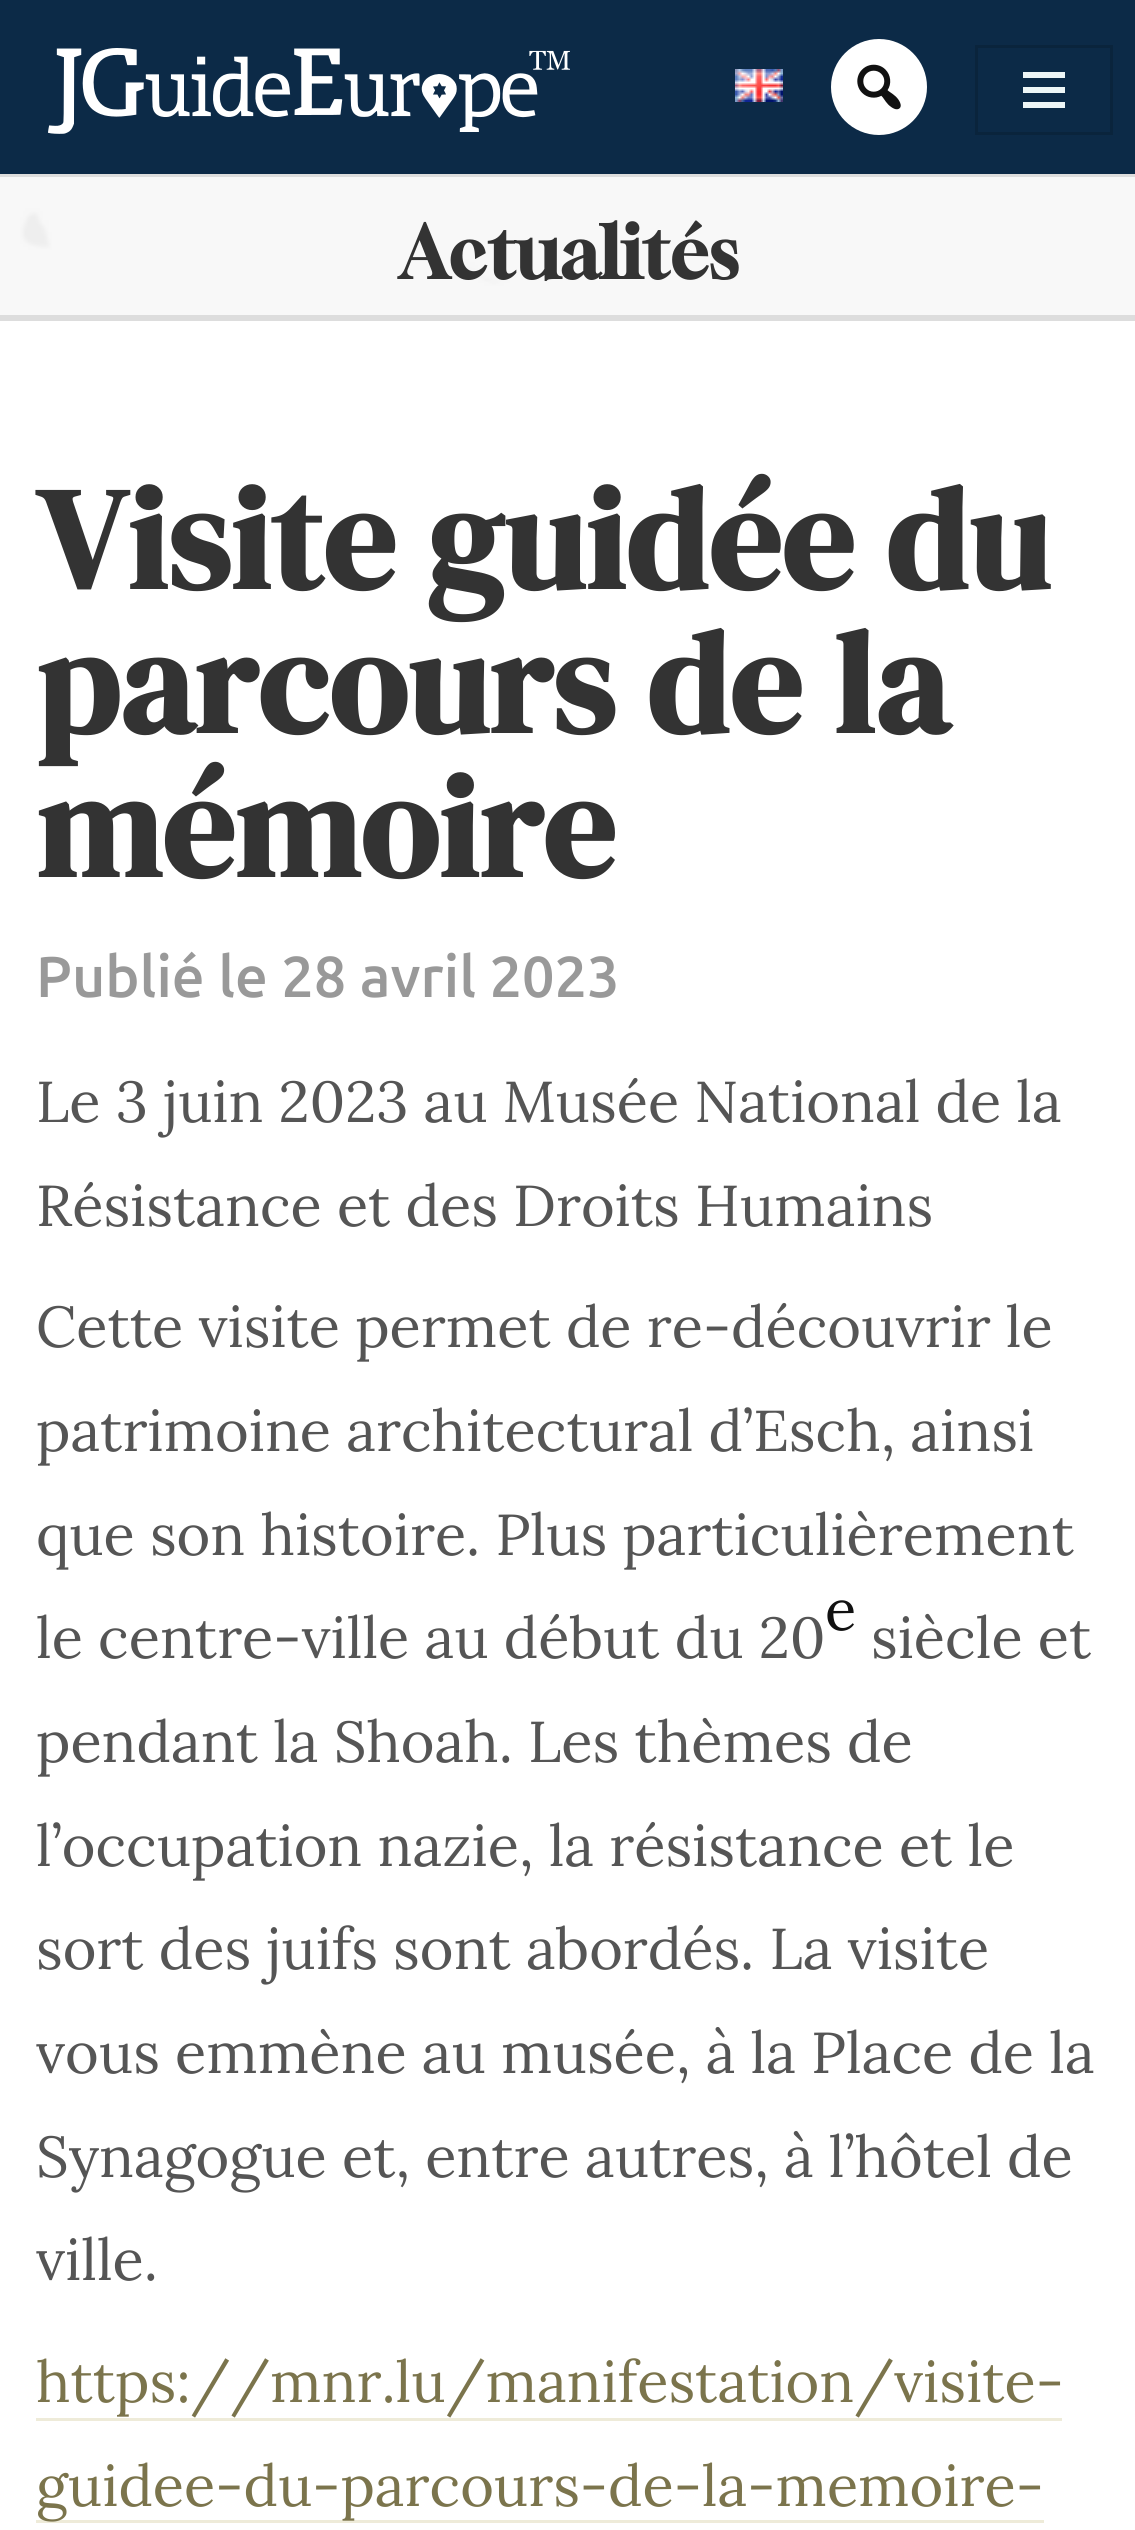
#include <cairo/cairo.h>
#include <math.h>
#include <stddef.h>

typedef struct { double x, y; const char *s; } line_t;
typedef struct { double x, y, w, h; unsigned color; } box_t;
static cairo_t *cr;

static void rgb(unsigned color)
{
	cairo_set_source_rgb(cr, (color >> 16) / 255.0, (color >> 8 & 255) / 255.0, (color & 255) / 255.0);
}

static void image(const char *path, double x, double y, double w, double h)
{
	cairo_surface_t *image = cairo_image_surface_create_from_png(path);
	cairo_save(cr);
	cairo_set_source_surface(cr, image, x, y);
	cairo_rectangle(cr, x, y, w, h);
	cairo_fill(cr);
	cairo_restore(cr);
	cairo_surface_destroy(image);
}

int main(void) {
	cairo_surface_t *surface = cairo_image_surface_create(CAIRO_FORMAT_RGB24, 1135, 2530);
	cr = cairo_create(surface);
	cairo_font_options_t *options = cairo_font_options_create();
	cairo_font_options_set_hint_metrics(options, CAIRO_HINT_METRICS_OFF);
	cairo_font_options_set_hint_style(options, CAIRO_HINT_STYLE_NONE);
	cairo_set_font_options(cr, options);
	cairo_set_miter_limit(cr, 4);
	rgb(0xffffff);
	cairo_paint(cr);
	rgb(0x0c2a47);
	cairo_rectangle(cr, 0, 0, 1135, 174);
	cairo_fill(cr);
	image("img/1.png", 48, 48, 522, 86);
	image("img/2.png", 735, 69, 48, 33);
	rgb(0xffffff);
	cairo_arc(cr, 879, 87, 48, 0, 2 * M_PI);
	cairo_fill(cr);
	image("img/3.png", 857, 64, 44, 46);
	cairo_rectangle(cr, 976.5, 46.5, 135, 87);
	rgb(0x0a243c);
	cairo_set_line_width(cr, 3);
	cairo_stroke(cr);
	rgb(0xeef6f7);
	cairo_new_path(cr);
	cairo_move_to(cr, 1023, 93);
	cairo_line_to(cr, 1065, 93);
	cairo_line_to(cr, 1065, 87);
	cairo_line_to(cr, 1023, 87);
	cairo_close_path(cr);
	cairo_move_to(cr, 1023, 108);
	cairo_line_to(cr, 1065, 108);
	cairo_line_to(cr, 1065, 102);
	cairo_line_to(cr, 1023, 102);
	cairo_close_path(cr);
	cairo_move_to(cr, 1023, 72);
	cairo_line_to(cr, 1023, 78);
	cairo_line_to(cr, 1065, 78);
	cairo_line_to(cr, 1065, 72);
	cairo_close_path(cr);
	cairo_fill(cr);
	rgb(0xeeeeee);
	cairo_rectangle(cr, 0, 177, 1135, 138);
	cairo_fill(cr);
	image("img/4.png", 0, 177, 1135, 138);
	{
		static const box_t items[] = {
			{0, 174, 1135, 3, 0xdddddd},
			{0, 315, 1135, 6, 0xdddddd},
			{36, 2418, 1026, 3, 0xeeebd9},
			{36, 2520, 1008, 3, 0xeeebd9},
		};
		for (size_t i = 0; i < sizeof items / sizeof *items; i++) {
			rgb(items[i].color);
			cairo_rectangle(cr, items[i].x, items[i].y, items[i].w, items[i].h);
			cairo_fill(cr);
		}
	}
	cairo_select_font_face(cr, "Gloock", CAIRO_FONT_SLANT_NORMAL, CAIRO_FONT_WEIGHT_BOLD);
	cairo_set_font_size(cr, 72);
	rgb(0x333333);
	cairo_move_to(cr, 399, 279);
	cairo_show_text(cr, "Actualités");
	cairo_select_font_face(cr, "DM Serif Display", CAIRO_FONT_SLANT_NORMAL, CAIRO_FONT_WEIGHT_BOLD);
	cairo_set_font_size(cr, 144);
	{
		static const line_t items[] = {
			{36, 589, "Visite guidée du"},
			{36, 733, "parcours de la"},
			{36, 877, "mémoire"},
		};
		for (size_t i = 0; i < sizeof items / sizeof *items; i++) {
			cairo_move_to(cr, items[i].x, items[i].y);
			cairo_show_text(cr, items[i].s);
		}
	}
	cairo_select_font_face(cr, "Ubuntu Sans SemiBold", CAIRO_FONT_SLANT_NORMAL, CAIRO_FONT_WEIGHT_NORMAL);
	cairo_set_font_size(cr, 57.6);
	rgb(0x999999);
	cairo_move_to(cr, 36, 997);
	cairo_show_text(cr, "Publié le 28 avril 2023");
	cairo_select_font_face(cr, "Lora", CAIRO_FONT_SLANT_NORMAL, CAIRO_FONT_WEIGHT_NORMAL);
	rgb(0x555555);
	{
		static const line_t items[] = {
			{36, 1122, "Le 3 juin 2023 au Musée National de la"},
			{36, 1226, "Résistance et des Droits Humains"},
			{36, 1347, "Cette visite permet de re-découvrir le"},
			{36, 1451, "patrimoine architectural d’Esch, ainsi"},
			{36, 1555, "que son histoire. Plus particulièrement"},
			{36, 1658, "le centre-ville au début du 20"},
		};
		for (size_t i = 0; i < sizeof items / sizeof *items; i++) {
			cairo_move_to(cr, items[i].x, items[i].y);
			cairo_show_text(cr, items[i].s);
		}
	}
	rgb(0x111111);
	cairo_move_to(cr, 825, 1630);
	cairo_show_text(cr, "e");
	rgb(0x555555);
	{
		static const line_t items[] = {
			{871, 1658, "siècle et"},
			{36, 1762, "pendant la Shoah. Les thèmes de"},
			{36, 1866, "l’occupation nazie, la résistance et le"},
			{36, 1969, "sort des juifs sont abordés. La visite"},
			{36, 2073, "vous emmène au musée, à la Place de la"},
			{36, 2177, "Synagogue et, entre autres, à l’hôtel de"},
			{36, 2280, "ville."},
		};
		for (size_t i = 0; i < sizeof items / sizeof *items; i++) {
			cairo_move_to(cr, items[i].x, items[i].y);
			cairo_show_text(cr, items[i].s);
		}
	}
	rgb(0x7b744c);
	cairo_move_to(cr, 36, 2402);
	cairo_show_text(cr, "https://mnr.lu/manifestation/visite-");
	cairo_move_to(cr, 36, 2506);
	cairo_show_text(cr, "guidee-du-parcours-de-la-memoire-");
	cairo_surface_write_to_png(surface, "page.png");
	cairo_font_options_destroy(options);
	cairo_destroy(cr);
	cairo_surface_destroy(surface);
	return 0;
}
